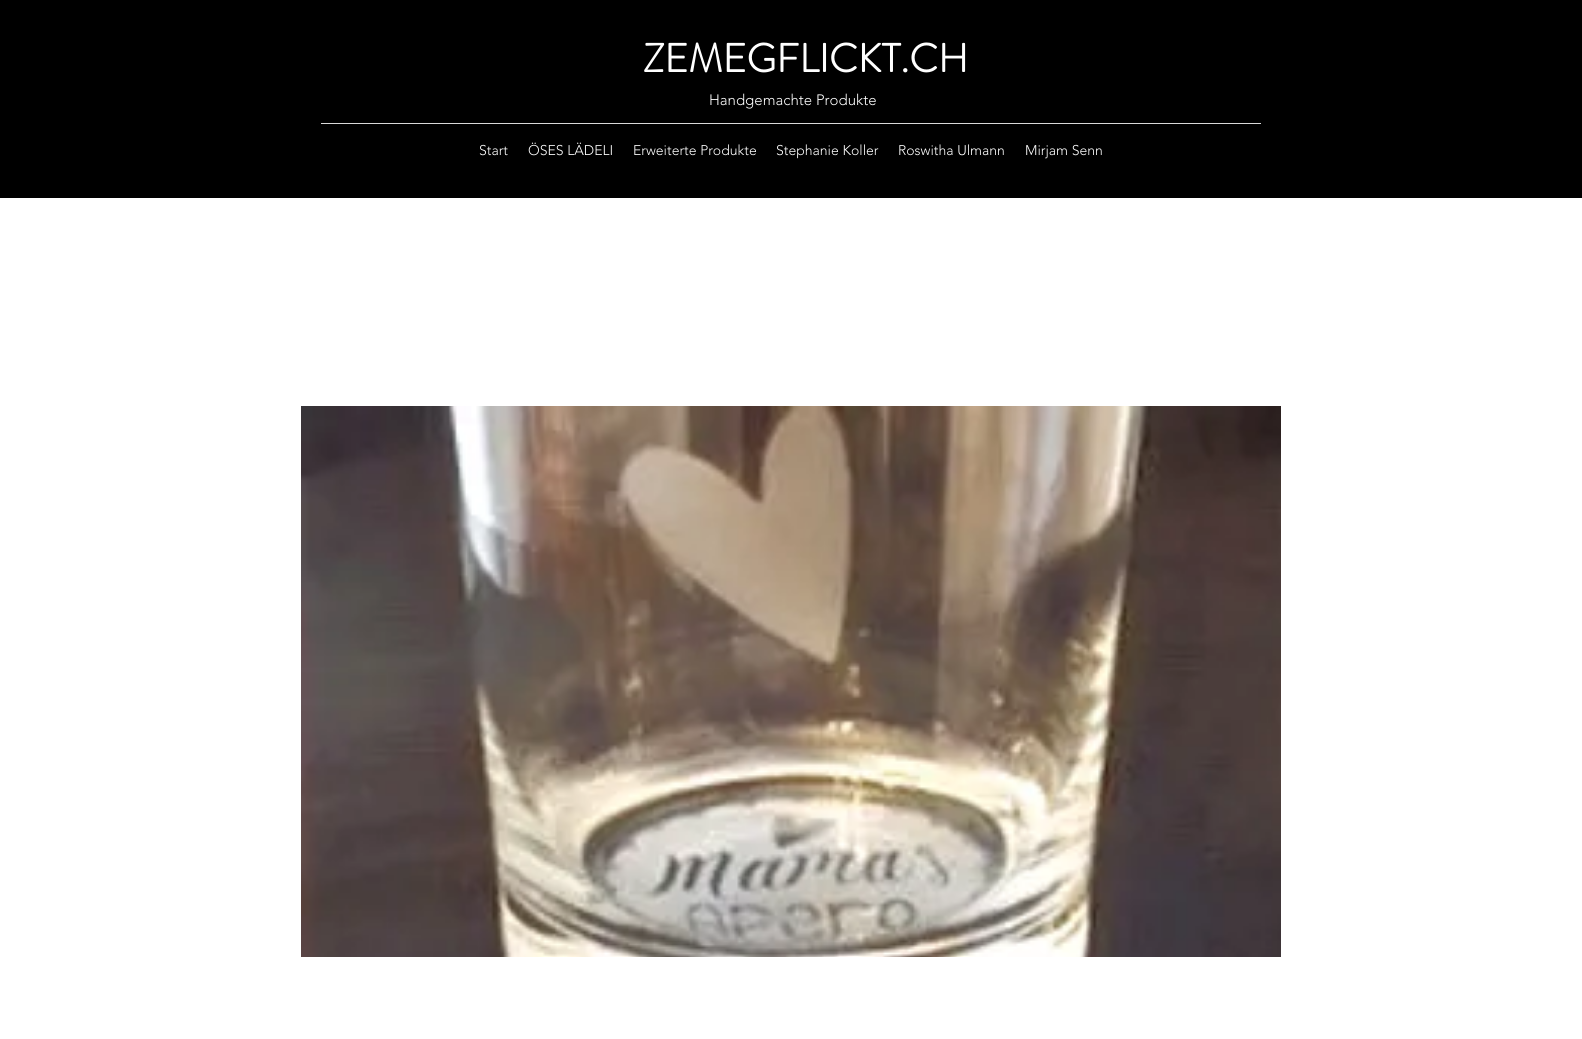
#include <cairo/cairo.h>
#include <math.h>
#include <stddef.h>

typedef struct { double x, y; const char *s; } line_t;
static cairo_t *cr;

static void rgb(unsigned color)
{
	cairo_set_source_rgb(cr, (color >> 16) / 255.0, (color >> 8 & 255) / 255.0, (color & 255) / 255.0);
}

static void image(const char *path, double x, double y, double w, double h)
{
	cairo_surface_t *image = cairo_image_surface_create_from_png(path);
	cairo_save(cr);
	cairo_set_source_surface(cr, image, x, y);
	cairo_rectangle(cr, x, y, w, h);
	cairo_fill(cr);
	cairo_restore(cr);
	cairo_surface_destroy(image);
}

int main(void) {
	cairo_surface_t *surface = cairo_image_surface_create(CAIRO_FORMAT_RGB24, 1582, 1039);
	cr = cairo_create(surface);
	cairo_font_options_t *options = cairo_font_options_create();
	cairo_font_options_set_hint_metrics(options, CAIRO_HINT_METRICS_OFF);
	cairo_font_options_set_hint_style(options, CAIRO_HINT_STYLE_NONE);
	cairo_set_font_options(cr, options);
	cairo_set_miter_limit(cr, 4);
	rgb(0xffffff);
	cairo_paint(cr);
	rgb(0x000000);
	cairo_rectangle(cr, 0, 0, 1582, 198);
	cairo_fill(cr);
	rgb(0xd9d9d9);
	cairo_rectangle(cr, 321, 123, 940, 1);
	cairo_fill(cr);
	image("img/1.png", 301, 406, 980, 551);
	cairo_select_font_face(cr, "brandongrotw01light", CAIRO_FONT_SLANT_NORMAL, CAIRO_FONT_WEIGHT_BOLD);
	cairo_set_font_size(cr, 40);
	rgb(0xffffff);
	cairo_move_to(cr, 643, 72);
	cairo_show_text(cr, "ZEMEGFLICKT.CH");
	cairo_select_font_face(cr, "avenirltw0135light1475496 Light", CAIRO_FONT_SLANT_NORMAL, CAIRO_FONT_WEIGHT_NORMAL);
	cairo_set_font_size(cr, 15);
	cairo_move_to(cr, 709, 105);
	cairo_show_text(cr, "Handgemachte Produkte");
	cairo_set_font_size(cr, 14);
	{
		static const line_t items[] = {
			{479, 155, "Start"},
			{528, 155, "ÖSES LÄDELI"},
			{633, 155, "Erweiterte Produkte"},
			{776, 155, "Stephanie Koller"},
			{898, 155, "Roswitha Ulmann"},
			{1025, 155, "Mirjam Senn"},
		};
		for (size_t i = 0; i < sizeof items / sizeof *items; i++) {
			cairo_move_to(cr, items[i].x, items[i].y);
			cairo_show_text(cr, items[i].s);
		}
	}
	cairo_surface_write_to_png(surface, "page.png");
	cairo_font_options_destroy(options);
	cairo_destroy(cr);
	cairo_surface_destroy(surface);
	return 0;
}
